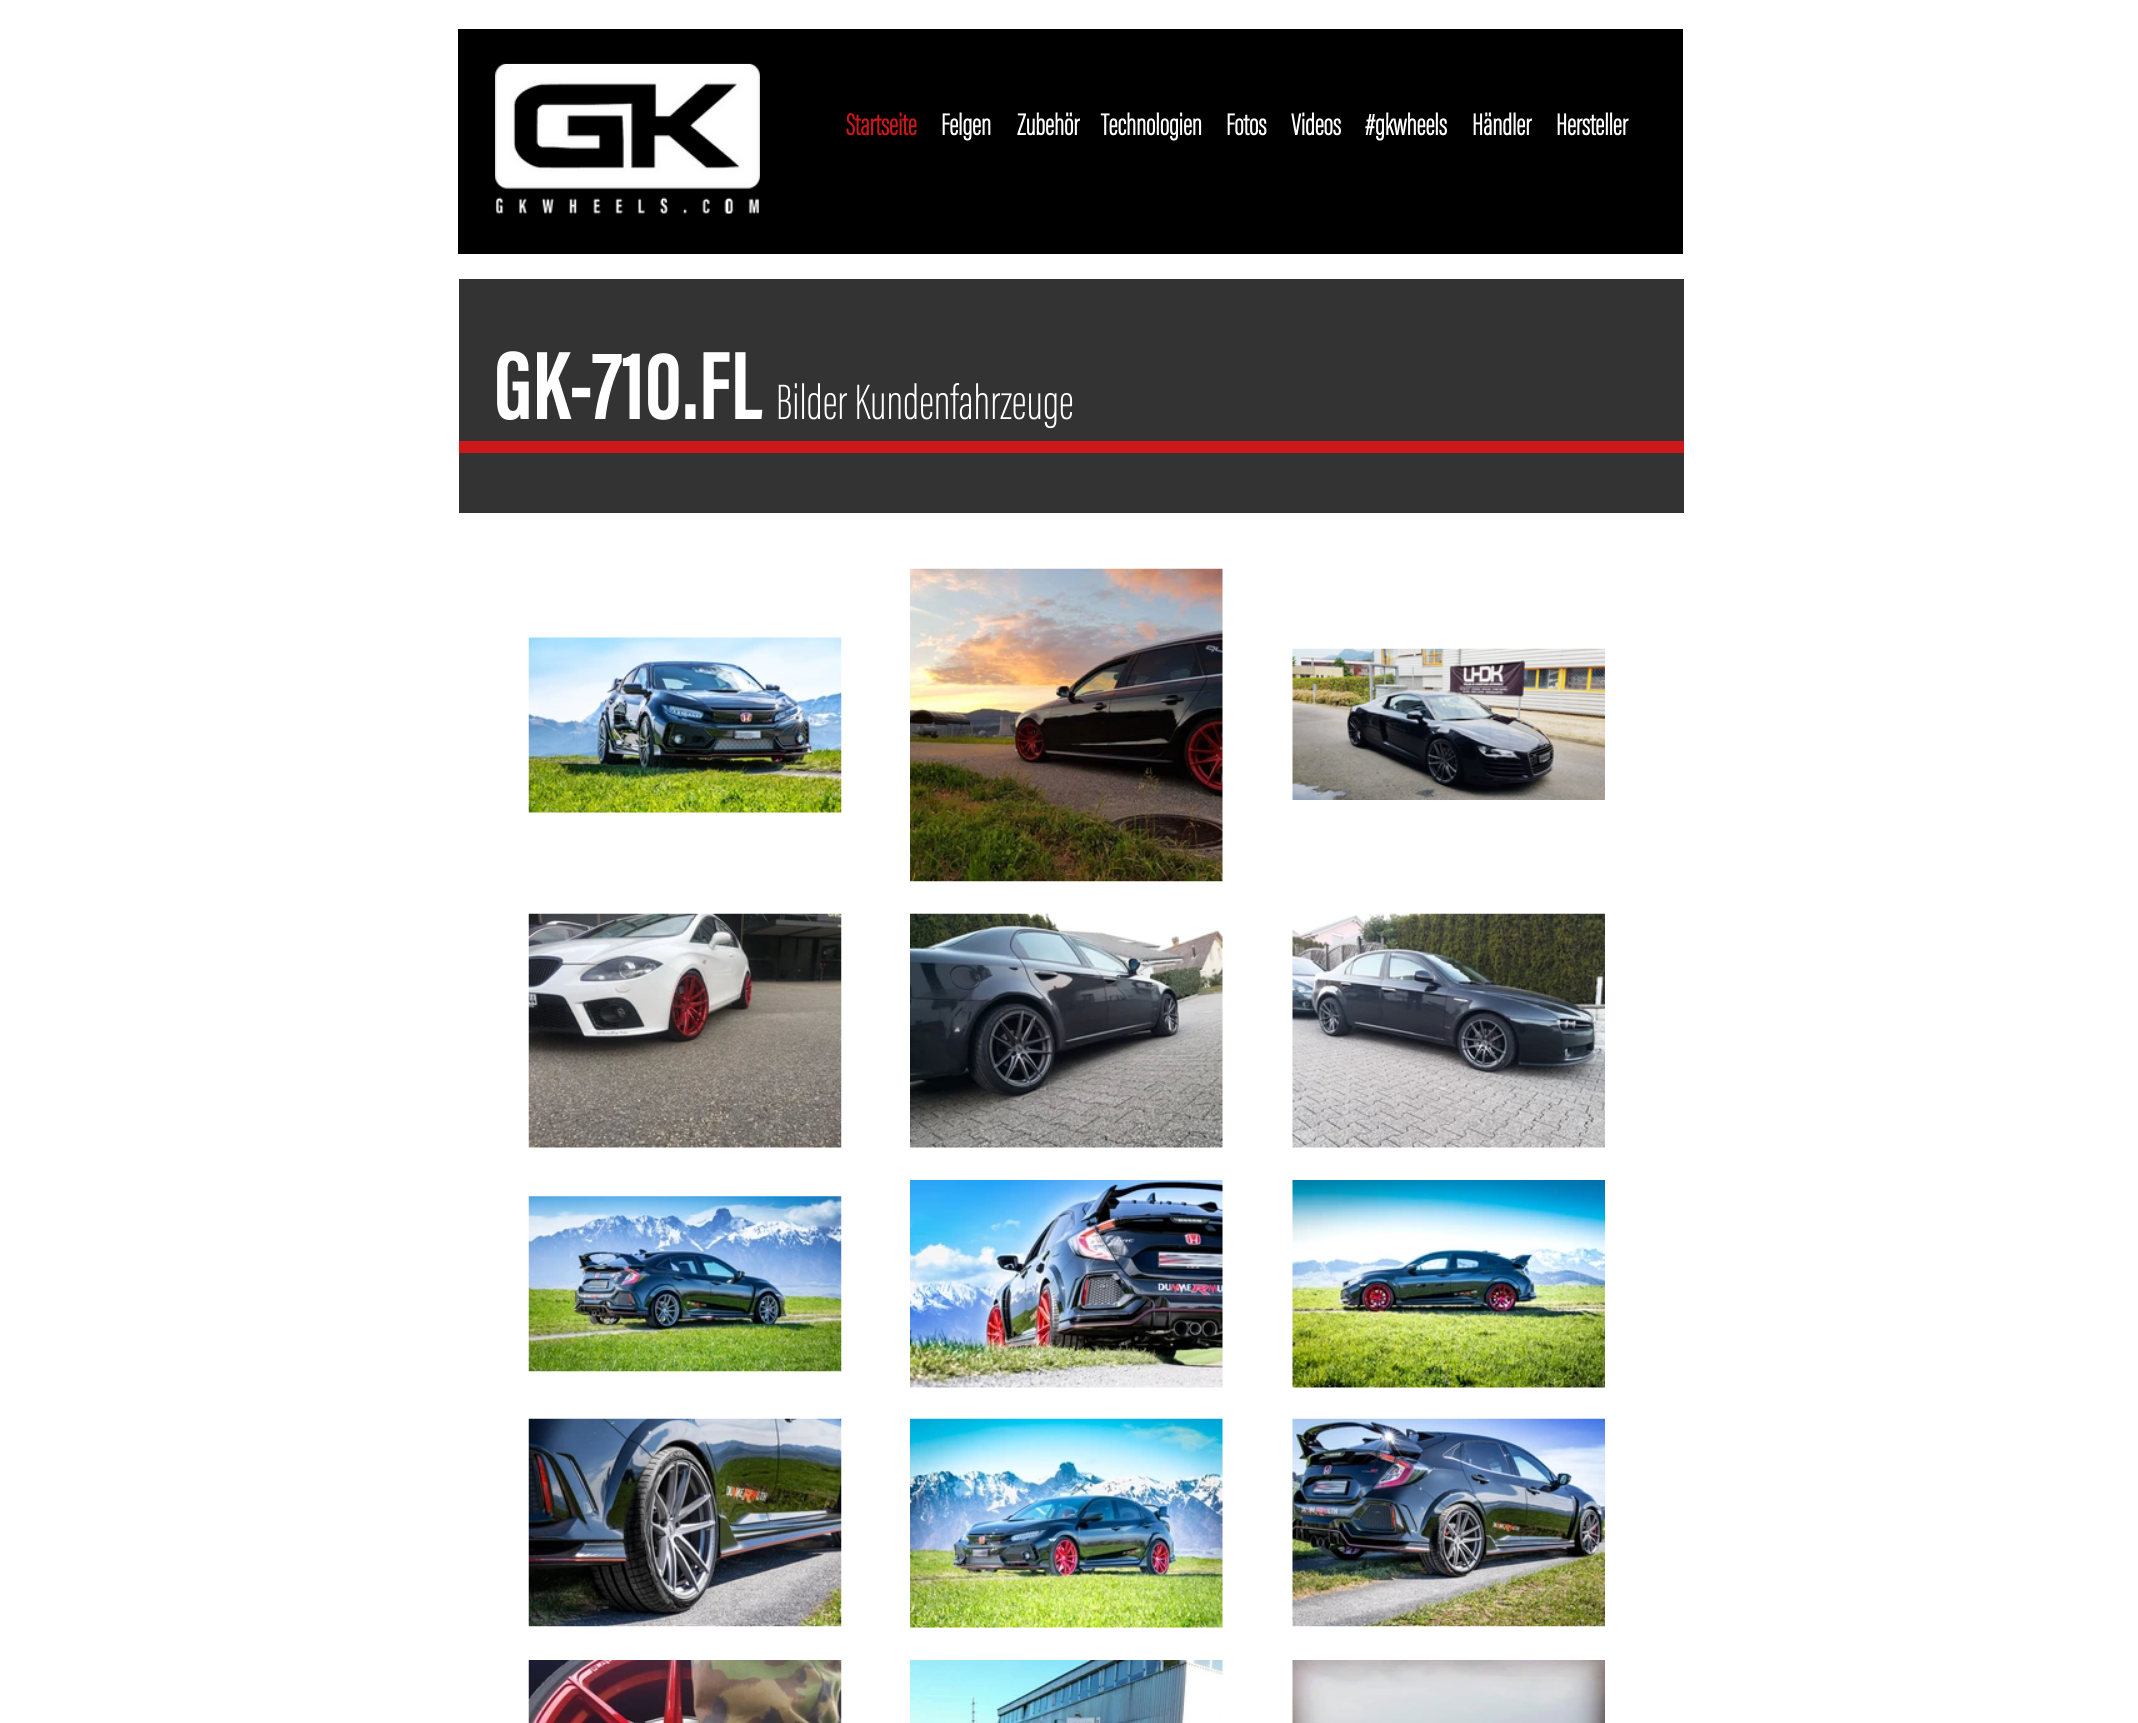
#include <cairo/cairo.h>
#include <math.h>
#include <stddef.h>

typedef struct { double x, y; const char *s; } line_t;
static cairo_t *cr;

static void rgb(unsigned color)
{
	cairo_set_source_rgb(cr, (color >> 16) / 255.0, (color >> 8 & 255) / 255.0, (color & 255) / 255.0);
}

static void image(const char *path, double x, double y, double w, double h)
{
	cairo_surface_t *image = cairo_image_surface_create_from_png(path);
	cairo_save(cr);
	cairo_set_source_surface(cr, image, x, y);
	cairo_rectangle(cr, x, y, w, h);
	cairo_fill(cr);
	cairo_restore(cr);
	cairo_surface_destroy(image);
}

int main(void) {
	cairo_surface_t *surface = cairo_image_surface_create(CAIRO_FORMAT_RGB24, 2138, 1723);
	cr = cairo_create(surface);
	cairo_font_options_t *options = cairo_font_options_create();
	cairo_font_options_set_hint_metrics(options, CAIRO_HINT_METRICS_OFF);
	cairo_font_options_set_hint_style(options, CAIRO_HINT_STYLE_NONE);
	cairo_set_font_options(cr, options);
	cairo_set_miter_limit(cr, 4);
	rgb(0xffffff);
	cairo_paint(cr);
	rgb(0x000000);
	cairo_rectangle(cr, 458, 29, 1225, 225);
	cairo_fill(cr);
	image("img/1.png", 495, 63, 265, 151);
	rgb(0x333333);
	cairo_rectangle(cr, 459, 279, 1225, 234);
	cairo_fill(cr);
	image("img/2.png", 528, 637, 314, 176);
	image("img/3.png", 910, 568, 313, 314);
	image("img/4.png", 1292, 648, 313, 152);
	image("img/5.png", 528, 913, 314, 235);
	image("img/6.png", 910, 913, 313, 235);
	image("img/7.png", 1292, 913, 313, 235);
	image("img/8.png", 528, 1196, 314, 176);
	image("img/9.png", 910, 1180, 313, 208);
	image("img/10.png", 1292, 1180, 313, 208);
	image("img/11.png", 528, 1418, 314, 209);
	image("img/12.png", 910, 1418, 313, 210);
	image("img/13.png", 1292, 1418, 313, 209);
	image("img/14.png", 528, 1660, 314, 63);
	image("img/15.png", 910, 1660, 313, 63);
	image("img/16.png", 1292, 1660, 313, 63);
	rgb(0xcd1719);
	cairo_rectangle(cr, 459, 441, 1225, 12);
	cairo_fill(cr);
	cairo_select_font_face(cr, "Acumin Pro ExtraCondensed", CAIRO_FONT_SLANT_NORMAL, CAIRO_FONT_WEIGHT_BOLD);
	cairo_set_font_size(cr, 31);
	cairo_move_to(cr, 846, 135);
	cairo_show_text(cr, "Startseite");
	rgb(0xffffff);
	{
		static const line_t items[] = {
			{941, 135, "Felgen"},
			{1017, 135, "Zubehör"},
			{1101, 135, "Technologien"},
			{1226, 135, "Fotos"},
			{1291, 135, "Videos"},
			{1365, 135, "#gkwheels"},
			{1472, 135, "Händler"},
			{1556, 135, "Hersteller"},
		};
		for (size_t i = 0; i < sizeof items / sizeof *items; i++) {
			cairo_move_to(cr, items[i].x, items[i].y);
			cairo_show_text(cr, items[i].s);
		}
	}
	cairo_select_font_face(cr, "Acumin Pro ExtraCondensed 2", CAIRO_FONT_SLANT_NORMAL, CAIRO_FONT_WEIGHT_BOLD);
	cairo_set_font_size(cr, 100);
	cairo_move_to(cr, 494, 419);
	cairo_show_text(cr, "GK-710.FL");
	cairo_select_font_face(cr, "Acumin Pro ExtraCondensed ExtraLight", CAIRO_FONT_SLANT_NORMAL, CAIRO_FONT_WEIGHT_NORMAL);
	cairo_set_font_size(cr, 51.25);
	cairo_move_to(cr, 776, 419);
	cairo_show_text(cr, "Bilder Kundenfahrzeuge");
	cairo_surface_write_to_png(surface, "page.png");
	cairo_font_options_destroy(options);
	cairo_destroy(cr);
	cairo_surface_destroy(surface);
	return 0;
}
